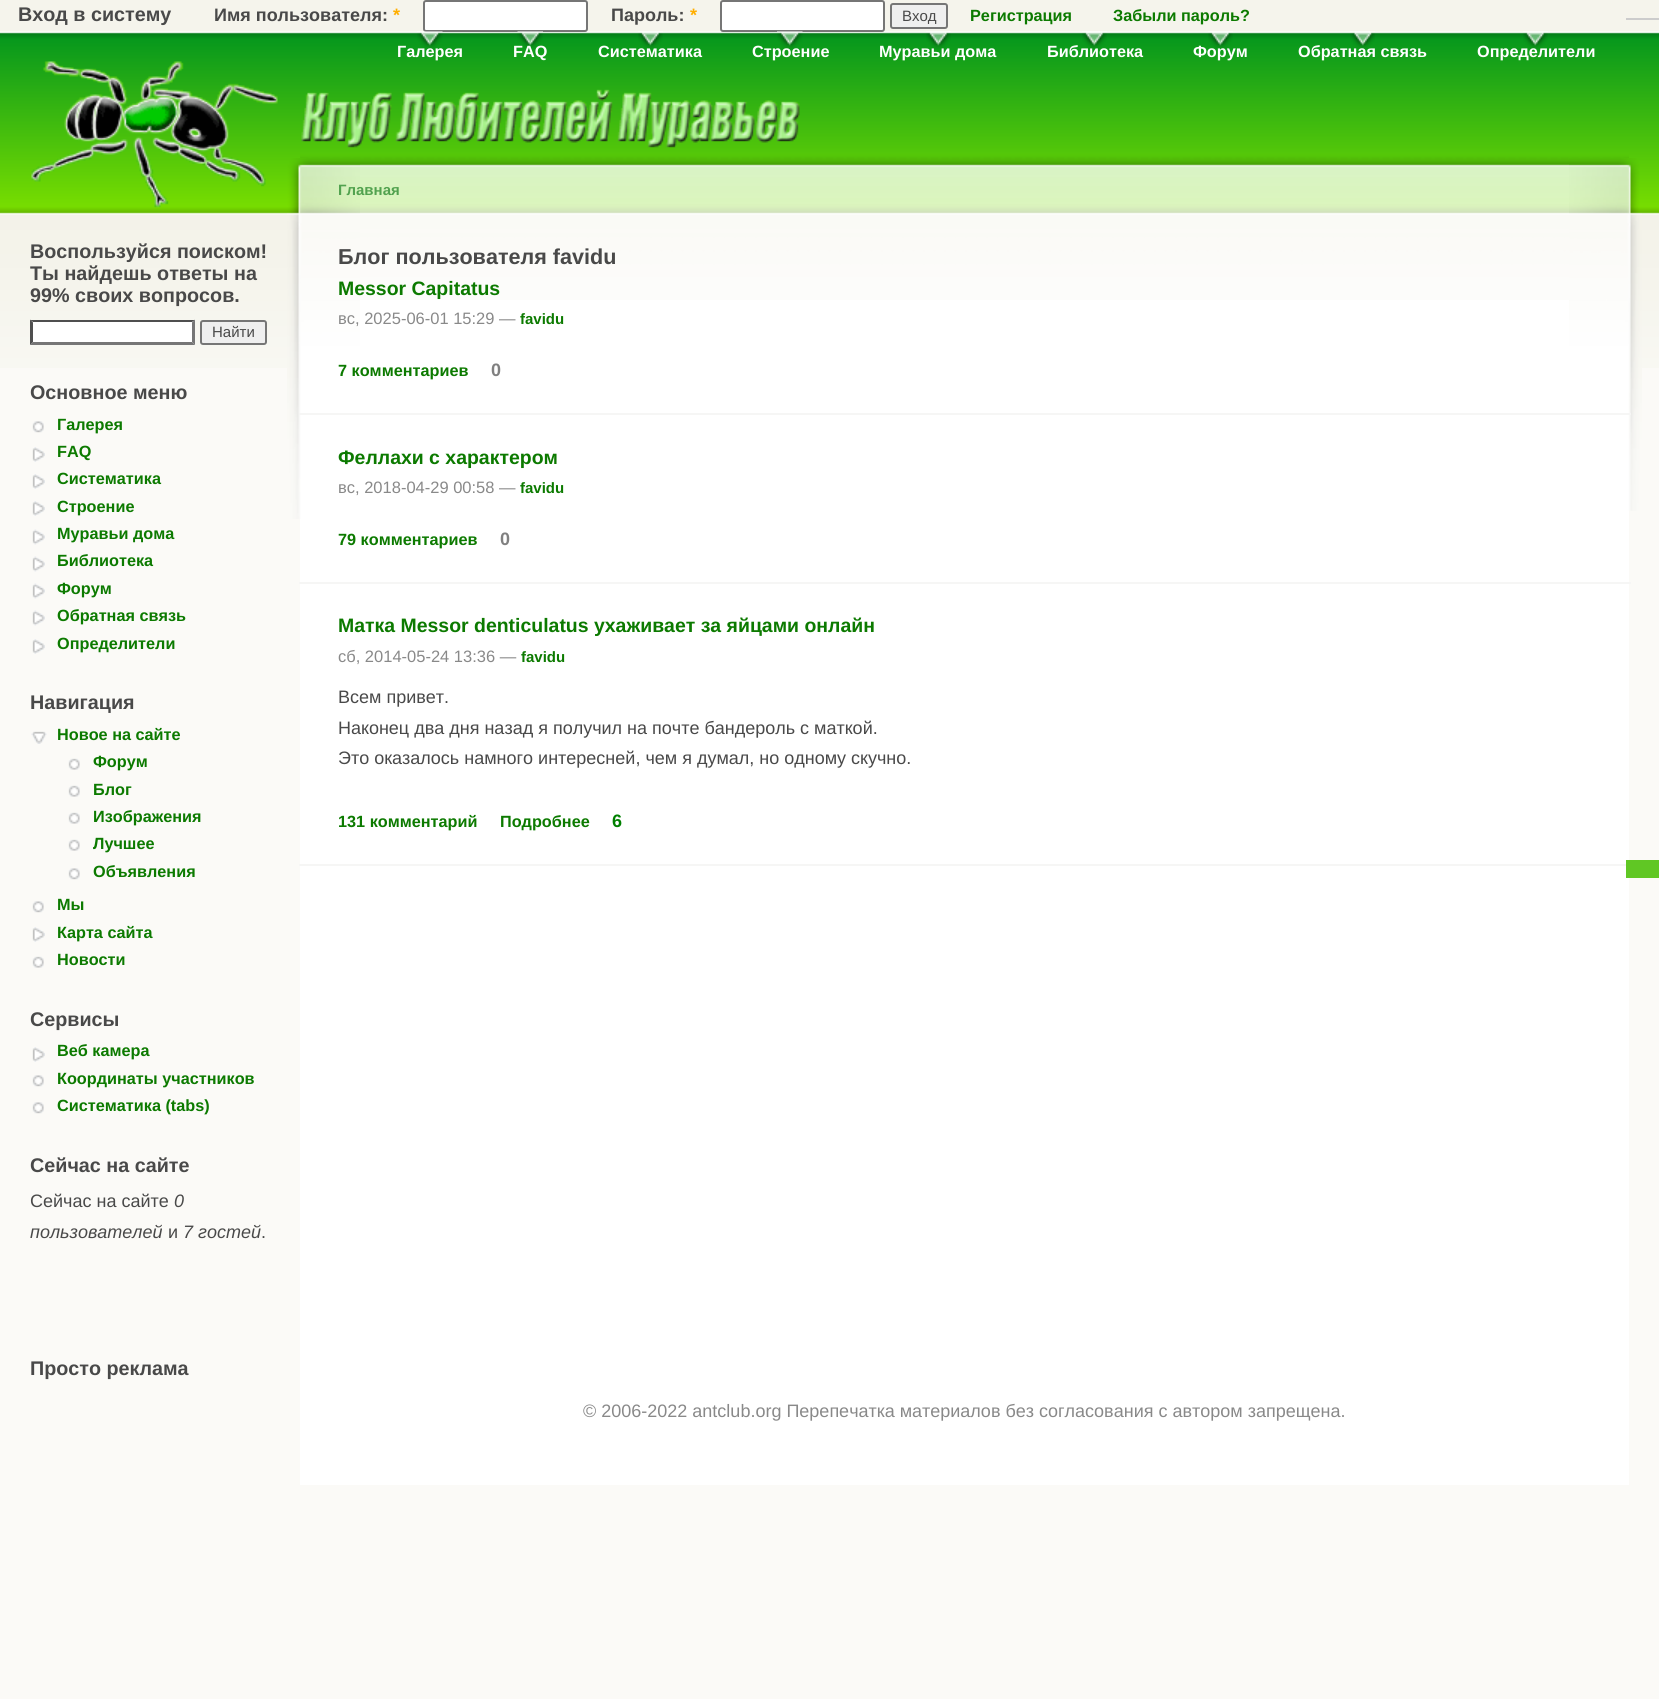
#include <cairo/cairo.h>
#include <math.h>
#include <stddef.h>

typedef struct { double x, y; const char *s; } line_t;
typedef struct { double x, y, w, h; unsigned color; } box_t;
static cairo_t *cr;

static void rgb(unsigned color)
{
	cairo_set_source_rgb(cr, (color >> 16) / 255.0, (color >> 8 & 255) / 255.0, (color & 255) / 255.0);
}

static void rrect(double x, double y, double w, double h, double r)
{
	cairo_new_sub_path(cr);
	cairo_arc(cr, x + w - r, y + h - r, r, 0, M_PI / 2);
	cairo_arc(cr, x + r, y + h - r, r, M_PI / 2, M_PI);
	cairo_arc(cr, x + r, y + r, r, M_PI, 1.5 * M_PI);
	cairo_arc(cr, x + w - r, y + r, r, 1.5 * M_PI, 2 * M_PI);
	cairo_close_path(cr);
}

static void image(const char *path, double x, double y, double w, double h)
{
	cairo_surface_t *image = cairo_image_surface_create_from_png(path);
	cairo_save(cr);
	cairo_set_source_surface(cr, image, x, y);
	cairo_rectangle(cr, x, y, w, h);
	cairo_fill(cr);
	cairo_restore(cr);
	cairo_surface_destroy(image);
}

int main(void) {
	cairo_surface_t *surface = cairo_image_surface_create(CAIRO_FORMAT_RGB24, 1659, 1699);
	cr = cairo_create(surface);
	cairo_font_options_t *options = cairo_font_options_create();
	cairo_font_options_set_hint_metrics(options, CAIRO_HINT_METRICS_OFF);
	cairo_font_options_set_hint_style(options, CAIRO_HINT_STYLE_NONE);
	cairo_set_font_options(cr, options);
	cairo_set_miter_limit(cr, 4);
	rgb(0xfbfaf7);
	cairo_paint(cr);
	rgb(0xf5f4ec);
	cairo_rectangle(cr, 0, 0, 1659, 32);
	cairo_fill(cr);
	image("img/1.png", 0, 31, 1659, 337);
	rgb(0xffffff);
	rrect(424, 1, 163, 30, 2);
	cairo_fill_preserve(cr);
	rgb(0x767676);
	cairo_stroke(cr);
	rgb(0xffffff);
	rrect(721, 1, 163, 30, 2);
	cairo_fill_preserve(cr);
	rgb(0x767676);
	cairo_stroke(cr);
	rgb(0xefefef);
	rrect(891, 4, 56, 24, 2);
	cairo_fill_preserve(cr);
	rgb(0x767676);
	cairo_stroke(cr);
	image("img/2.png", 417, 31, 26, 18);
	image("img/3.png", 517, 31, 26, 18);
	image("img/4.png", 638, 31, 25, 18);
	image("img/5.png", 777, 31, 26, 18);
	image("img/6.png", 926, 31, 25, 18);
	image("img/6.png", 1082, 31, 25, 18);
	image("img/6.png", 1208, 31, 25, 18);
	image("img/7.png", 1350, 31, 25, 18);
	image("img/6.png", 1523, 31, 25, 18);
	image("img/14.png", 300, 152, 1329, 148);
	rgb(0xffffff);
	cairo_rectangle(cr, 300, 300, 1329, 1185);
	cairo_fill(cr);
	image("img/16.png", 287, 158, 73, 361);
	image("img/8.png", 31, 61, 769, 147);
	cairo_rectangle(cr, 30, 320, 165, 25);
	cairo_fill(cr);
	rgb(0x4f4f4f);
	cairo_new_path(cr);
	cairo_move_to(cr, 30, 320);
	cairo_line_to(cr, 195, 320);
	cairo_line_to(cr, 192, 322);
	cairo_line_to(cr, 33, 322);
	cairo_close_path(cr);
	cairo_fill(cr);
	rgb(0x767676);
	cairo_new_path(cr);
	cairo_move_to(cr, 195, 319.5);
	cairo_line_to(cr, 195, 345);
	cairo_line_to(cr, 192, 342);
	cairo_line_to(cr, 192, 322.5);
	cairo_close_path(cr);
	cairo_fill(cr);
	cairo_new_path(cr);
	cairo_move_to(cr, 195, 345);
	cairo_line_to(cr, 30, 345);
	cairo_line_to(cr, 33, 342);
	cairo_line_to(cr, 192, 342);
	cairo_close_path(cr);
	cairo_fill(cr);
	rgb(0x4f4f4f);
	cairo_new_path(cr);
	cairo_move_to(cr, 30, 345);
	cairo_line_to(cr, 30, 319.5);
	cairo_line_to(cr, 33, 322.5);
	cairo_line_to(cr, 33, 342);
	cairo_close_path(cr);
	cairo_fill(cr);
	rgb(0xefefef);
	rrect(201, 321, 65, 23, 2);
	cairo_fill_preserve(cr);
	rgb(0x767676);
	cairo_stroke(cr);
	image("img/9.png", 32, 421, 12, 12);
	image("img/10.png", 32, 447, 13, 15);
	image("img/10.png", 32, 474, 13, 15);
	image("img/10.png", 32, 501, 13, 15);
	image("img/11.png", 32, 529, 13, 16);
	image("img/11.png", 32, 556, 13, 16);
	image("img/11.png", 32, 583, 13, 16);
	image("img/11.png", 32, 610, 13, 16);
	image("img/10.png", 32, 639, 13, 15);
	image("img/12.png", 31, 731, 16, 13);
	image("img/13.png", 68, 758, 12, 12);
	image("img/13.png", 68, 785, 12, 12);
	image("img/13.png", 68, 812, 12, 12);
	image("img/13.png", 68, 839, 12, 12);
	image("img/9.png", 68, 868, 12, 12);
	image("img/9.png", 32, 901, 12, 12);
	image("img/10.png", 32, 927, 13, 15);
	image("img/13.png", 32, 956, 12, 12);
	image("img/10.png", 32, 1047, 13, 15);
	image("img/9.png", 32, 1075, 12, 12);
	image("img/9.png", 32, 1102, 12, 12);
	image("img/15.png", 1569, 158, 73, 353);
	{
		static const box_t items[] = {
			{299, 413, 1332, 2, 0xf6f6f5},
			{299, 582, 1332, 2, 0xf6f6f5},
			{299, 864, 1332, 2, 0xf6f6f5},
			{1626, 18, 33, 2, 0xcccccc},
			{1626, 860, 33, 18, 0x60c724},
		};
		for (size_t i = 0; i < sizeof items / sizeof *items; i++) {
			rgb(items[i].color);
			cairo_rectangle(cr, items[i].x, items[i].y, items[i].w, items[i].h);
			cairo_fill(cr);
		}
	}
	cairo_select_font_face(cr, "Liberation Sans", CAIRO_FONT_SLANT_NORMAL, CAIRO_FONT_WEIGHT_BOLD);
	cairo_set_font_size(cr, 19.75);
	rgb(0x494949);
	cairo_move_to(cr, 18, 21);
	cairo_show_text(cr, "Вход в систему");
	cairo_set_font_size(cr, 18);
	cairo_move_to(cr, 214, 21);
	cairo_show_text(cr, "Имя пользователя:");
	rgb(0xffae00);
	cairo_move_to(cr, 393, 21);
	cairo_show_text(cr, "*");
	rgb(0x494949);
	cairo_move_to(cr, 611, 21);
	cairo_show_text(cr, "Пароль:");
	rgb(0xffae00);
	cairo_move_to(cr, 690, 21);
	cairo_show_text(cr, "*");
	cairo_select_font_face(cr, "Liberation Sans", CAIRO_FONT_SLANT_NORMAL, CAIRO_FONT_WEIGHT_NORMAL);
	cairo_set_font_size(cr, 15);
	rgb(0x494949);
	cairo_move_to(cr, 902, 21);
	cairo_show_text(cr, "Вход");
	cairo_select_font_face(cr, "Liberation Sans", CAIRO_FONT_SLANT_NORMAL, CAIRO_FONT_WEIGHT_BOLD);
	cairo_set_font_size(cr, 16.25);
	rgb(0x0c7a00);
	cairo_move_to(cr, 970, 21);
	cairo_show_text(cr, "Регистрация");
	cairo_move_to(cr, 1113, 21);
	cairo_show_text(cr, "Забыли пароль?");
	rgb(0xffffff);
	{
		static const line_t items[] = {
			{397, 57, "Галерея"},
			{513, 57, "FAQ"},
			{598, 57, "Систематика"},
			{752, 57, "Строение"},
			{879, 57, "Муравьи дома"},
			{1047, 57, "Библиотека"},
			{1193, 57, "Форум"},
			{1298, 57, "Обратная связь"},
			{1477, 57, "Определители"},
		};
		for (size_t i = 0; i < sizeof items / sizeof *items; i++) {
			cairo_move_to(cr, items[i].x, items[i].y);
			cairo_show_text(cr, items[i].s);
		}
	}
	cairo_set_font_size(cr, 19.75);
	rgb(0x494949);
	{
		static const line_t items[] = {
			{30, 258, "Воспользуйся поиском!"},
			{30, 280, "Ты найдешь ответы на"},
			{30, 302, "99% своих вопросов."},
		};
		for (size_t i = 0; i < sizeof items / sizeof *items; i++) {
			cairo_move_to(cr, items[i].x, items[i].y);
			cairo_show_text(cr, items[i].s);
		}
	}
	cairo_select_font_face(cr, "Liberation Sans", CAIRO_FONT_SLANT_NORMAL, CAIRO_FONT_WEIGHT_NORMAL);
	cairo_set_font_size(cr, 15);
	cairo_move_to(cr, 212, 337);
	cairo_show_text(cr, "Найти");
	cairo_select_font_face(cr, "Liberation Sans", CAIRO_FONT_SLANT_NORMAL, CAIRO_FONT_WEIGHT_BOLD);
	cairo_set_font_size(cr, 19.75);
	cairo_move_to(cr, 30, 399);
	cairo_show_text(cr, "Основное меню");
	cairo_set_font_size(cr, 16.25);
	rgb(0x0c7a00);
	{
		static const line_t items[] = {
			{57, 430, "Галерея"},
			{57, 457, "FAQ"},
			{57, 484, "Систематика"},
			{57, 512, "Строение"},
			{57, 539, "Муравьи дома"},
			{57, 566, "Библиотека"},
			{57, 594, "Форум"},
			{57, 621, "Обратная связь"},
			{57, 649, "Определители"},
		};
		for (size_t i = 0; i < sizeof items / sizeof *items; i++) {
			cairo_move_to(cr, items[i].x, items[i].y);
			cairo_show_text(cr, items[i].s);
		}
	}
	cairo_set_font_size(cr, 19.75);
	rgb(0x494949);
	cairo_move_to(cr, 30, 709);
	cairo_show_text(cr, "Навигация");
	cairo_set_font_size(cr, 16.25);
	rgb(0x0c7a00);
	{
		static const line_t items[] = {
			{57, 740, "Новое на сайте"},
			{93, 767, "Форум"},
			{93, 795, "Блог"},
			{93, 822, "Изображения"},
			{93, 849, "Лучшее"},
			{93, 877, "Объявления"},
			{57, 910, "Мы"},
			{57, 938, "Карта сайта"},
			{57, 965, "Новости"},
		};
		for (size_t i = 0; i < sizeof items / sizeof *items; i++) {
			cairo_move_to(cr, items[i].x, items[i].y);
			cairo_show_text(cr, items[i].s);
		}
	}
	cairo_set_font_size(cr, 19.75);
	rgb(0x494949);
	cairo_move_to(cr, 30, 1026);
	cairo_show_text(cr, "Сервисы");
	cairo_set_font_size(cr, 16.25);
	rgb(0x0c7a00);
	{
		static const line_t items[] = {
			{57, 1056, "Веб камера"},
			{57, 1084, "Координаты участников"},
			{57, 1111, "Систематика (tabs)"},
		};
		for (size_t i = 0; i < sizeof items / sizeof *items; i++) {
			cairo_move_to(cr, items[i].x, items[i].y);
			cairo_show_text(cr, items[i].s);
		}
	}
	cairo_set_font_size(cr, 19.75);
	rgb(0x494949);
	cairo_move_to(cr, 30, 1172);
	cairo_show_text(cr, "Сейчас на сайте");
	cairo_select_font_face(cr, "Liberation Sans", CAIRO_FONT_SLANT_NORMAL, CAIRO_FONT_WEIGHT_NORMAL);
	cairo_set_font_size(cr, 18);
	cairo_move_to(cr, 30, 1207);
	cairo_show_text(cr, "Сейчас на сайте");
	cairo_select_font_face(cr, "Liberation Sans", CAIRO_FONT_SLANT_ITALIC, CAIRO_FONT_WEIGHT_NORMAL);
	cairo_move_to(cr, 174, 1207);
	cairo_show_text(cr, "0");
	cairo_move_to(cr, 30, 1238);
	cairo_show_text(cr, "пользователей");
	cairo_select_font_face(cr, "Liberation Sans", CAIRO_FONT_SLANT_NORMAL, CAIRO_FONT_WEIGHT_NORMAL);
	cairo_move_to(cr, 168, 1238);
	cairo_show_text(cr, "и");
	cairo_select_font_face(cr, "Liberation Sans", CAIRO_FONT_SLANT_ITALIC, CAIRO_FONT_WEIGHT_NORMAL);
	cairo_move_to(cr, 183, 1238);
	cairo_show_text(cr, "7 гостей");
	cairo_select_font_face(cr, "Liberation Sans", CAIRO_FONT_SLANT_NORMAL, CAIRO_FONT_WEIGHT_NORMAL);
	cairo_move_to(cr, 261, 1238);
	cairo_show_text(cr, ".");
	cairo_select_font_face(cr, "Liberation Sans", CAIRO_FONT_SLANT_NORMAL, CAIRO_FONT_WEIGHT_BOLD);
	cairo_set_font_size(cr, 19.75);
	cairo_move_to(cr, 30, 1375);
	cairo_show_text(cr, "Просто реклама");
	cairo_set_font_size(cr, 15);
	rgb(0x52a24f);
	cairo_move_to(cr, 338, 195);
	cairo_show_text(cr, "Главная");
	cairo_set_font_size(cr, 21.6);
	rgb(0x494949);
	cairo_move_to(cr, 338, 264);
	cairo_show_text(cr, "Блог пользователя favidu");
	cairo_set_font_size(cr, 19.45);
	rgb(0x0c7a00);
	cairo_move_to(cr, 338, 295);
	cairo_show_text(cr, "Messor Capitatus");
	cairo_select_font_face(cr, "Liberation Sans", CAIRO_FONT_SLANT_NORMAL, CAIRO_FONT_WEIGHT_NORMAL);
	cairo_set_font_size(cr, 16.5);
	rgb(0x898989);
	cairo_move_to(cr, 338, 324);
	cairo_show_text(cr, "вс, 2025-06-01 15:29 —");
	cairo_select_font_face(cr, "Liberation Sans", CAIRO_FONT_SLANT_NORMAL, CAIRO_FONT_WEIGHT_BOLD);
	cairo_set_font_size(cr, 15);
	rgb(0x0c7a00);
	cairo_move_to(cr, 520, 324);
	cairo_show_text(cr, "favidu");
	cairo_set_font_size(cr, 16.25);
	cairo_move_to(cr, 338, 376);
	cairo_show_text(cr, "7 комментариев");
	cairo_set_font_size(cr, 18);
	rgb(0x808080);
	cairo_move_to(cr, 491, 376);
	cairo_show_text(cr, "0");
	cairo_set_font_size(cr, 19.45);
	rgb(0x0c7a00);
	cairo_move_to(cr, 338, 464);
	cairo_show_text(cr, "Феллахи с характером");
	cairo_select_font_face(cr, "Liberation Sans", CAIRO_FONT_SLANT_NORMAL, CAIRO_FONT_WEIGHT_NORMAL);
	cairo_set_font_size(cr, 16.5);
	rgb(0x898989);
	cairo_move_to(cr, 338, 493);
	cairo_show_text(cr, "вс, 2018-04-29 00:58 —");
	cairo_select_font_face(cr, "Liberation Sans", CAIRO_FONT_SLANT_NORMAL, CAIRO_FONT_WEIGHT_BOLD);
	cairo_set_font_size(cr, 15);
	rgb(0x0c7a00);
	cairo_move_to(cr, 520, 493);
	cairo_show_text(cr, "favidu");
	cairo_set_font_size(cr, 16.25);
	cairo_move_to(cr, 338, 545);
	cairo_show_text(cr, "79 комментариев");
	cairo_set_font_size(cr, 18);
	rgb(0x808080);
	cairo_move_to(cr, 500, 545);
	cairo_show_text(cr, "0");
	cairo_set_font_size(cr, 19.45);
	rgb(0x0c7a00);
	cairo_move_to(cr, 338, 632);
	cairo_show_text(cr, "Матка Messor denticulatus ухаживает за яйцами онлайн");
	cairo_select_font_face(cr, "Liberation Sans", CAIRO_FONT_SLANT_NORMAL, CAIRO_FONT_WEIGHT_NORMAL);
	cairo_set_font_size(cr, 16.5);
	rgb(0x898989);
	cairo_move_to(cr, 338, 662);
	cairo_show_text(cr, "сб, 2014-05-24 13:36 —");
	cairo_select_font_face(cr, "Liberation Sans", CAIRO_FONT_SLANT_NORMAL, CAIRO_FONT_WEIGHT_BOLD);
	cairo_set_font_size(cr, 15);
	rgb(0x0c7a00);
	cairo_move_to(cr, 521, 662);
	cairo_show_text(cr, "favidu");
	cairo_select_font_face(cr, "Liberation Sans", CAIRO_FONT_SLANT_NORMAL, CAIRO_FONT_WEIGHT_NORMAL);
	cairo_set_font_size(cr, 18);
	rgb(0x494949);
	{
		static const line_t items[] = {
			{338, 703, "Всем привет."},
			{338, 734, "Наконец два дня назад я получил на почте бандероль с маткой."},
			{338, 764, "Это оказалось намного интересней, чем я думал, но одному скучно."},
		};
		for (size_t i = 0; i < sizeof items / sizeof *items; i++) {
			cairo_move_to(cr, items[i].x, items[i].y);
			cairo_show_text(cr, items[i].s);
		}
	}
	cairo_select_font_face(cr, "Liberation Sans", CAIRO_FONT_SLANT_NORMAL, CAIRO_FONT_WEIGHT_BOLD);
	cairo_set_font_size(cr, 16.25);
	rgb(0x0c7a00);
	cairo_move_to(cr, 338, 827);
	cairo_show_text(cr, "131 комментарий");
	cairo_move_to(cr, 500, 827);
	cairo_show_text(cr, "Подробнее");
	cairo_set_font_size(cr, 18);
	rgb(0x008000);
	cairo_move_to(cr, 612, 827);
	cairo_show_text(cr, "6");
	cairo_select_font_face(cr, "Liberation Sans", CAIRO_FONT_SLANT_NORMAL, CAIRO_FONT_WEIGHT_NORMAL);
	rgb(0x898989);
	cairo_move_to(cr, 583, 1417);
	cairo_show_text(cr, "© 2006-2022 antclub.org Перепечатка материалов без согласования с автором запрещена.");
	cairo_surface_write_to_png(surface, "page.png");
	cairo_font_options_destroy(options);
	cairo_destroy(cr);
	cairo_surface_destroy(surface);
	return 0;
}
